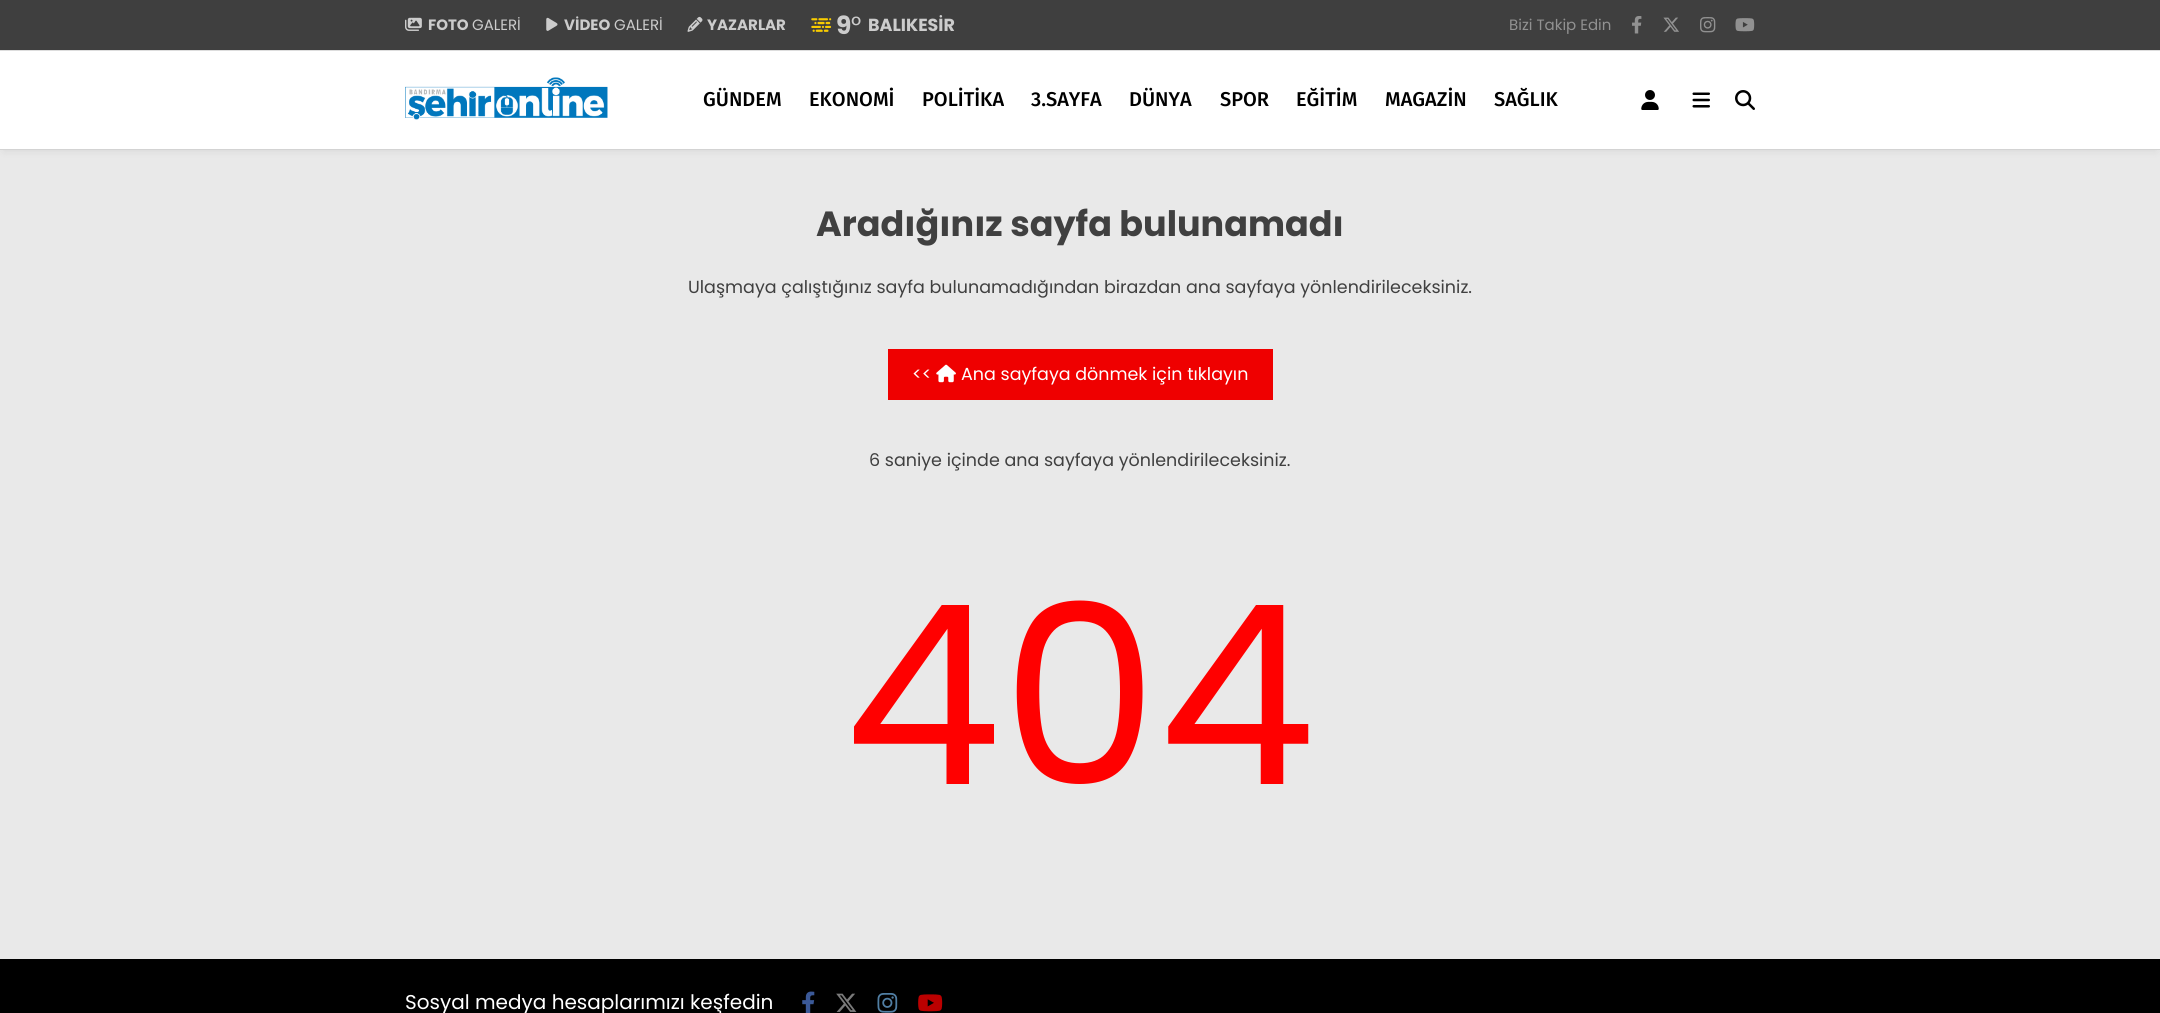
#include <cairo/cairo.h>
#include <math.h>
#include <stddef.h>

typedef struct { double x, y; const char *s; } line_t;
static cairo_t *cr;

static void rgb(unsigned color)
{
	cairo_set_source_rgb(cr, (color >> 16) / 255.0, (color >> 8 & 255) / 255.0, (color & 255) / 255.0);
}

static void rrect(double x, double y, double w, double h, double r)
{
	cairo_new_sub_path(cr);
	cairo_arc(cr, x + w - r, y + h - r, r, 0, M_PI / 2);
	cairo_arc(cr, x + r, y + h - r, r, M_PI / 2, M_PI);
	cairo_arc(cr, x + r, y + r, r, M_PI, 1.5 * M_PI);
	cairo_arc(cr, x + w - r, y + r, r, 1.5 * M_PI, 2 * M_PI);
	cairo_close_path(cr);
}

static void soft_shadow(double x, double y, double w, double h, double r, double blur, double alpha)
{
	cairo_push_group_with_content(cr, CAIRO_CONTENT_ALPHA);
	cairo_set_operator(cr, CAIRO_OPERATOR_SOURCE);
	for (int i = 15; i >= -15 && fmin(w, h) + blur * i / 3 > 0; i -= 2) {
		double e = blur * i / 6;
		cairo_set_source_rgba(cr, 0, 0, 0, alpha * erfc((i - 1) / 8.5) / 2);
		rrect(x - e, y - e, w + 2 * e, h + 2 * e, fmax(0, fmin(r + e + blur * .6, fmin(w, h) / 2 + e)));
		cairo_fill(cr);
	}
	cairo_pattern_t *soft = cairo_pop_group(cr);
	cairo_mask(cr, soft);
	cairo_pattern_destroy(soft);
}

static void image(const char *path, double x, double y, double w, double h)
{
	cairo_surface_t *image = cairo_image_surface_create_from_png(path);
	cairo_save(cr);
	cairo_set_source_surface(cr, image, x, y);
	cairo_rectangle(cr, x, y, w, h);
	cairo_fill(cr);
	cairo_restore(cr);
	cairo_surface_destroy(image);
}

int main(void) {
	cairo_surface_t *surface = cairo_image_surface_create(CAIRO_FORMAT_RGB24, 2160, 1013);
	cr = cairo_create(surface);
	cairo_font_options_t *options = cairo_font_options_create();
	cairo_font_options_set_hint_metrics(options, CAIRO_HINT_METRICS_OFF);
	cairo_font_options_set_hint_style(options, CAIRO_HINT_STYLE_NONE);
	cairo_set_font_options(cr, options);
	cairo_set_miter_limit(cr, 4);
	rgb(0xe9e9e9);
	cairo_paint(cr);
	rgb(0x3f3f3f);
	cairo_rectangle(cr, 0, 0, 2160, 50);
	cairo_fill(cr);
	rgb(0xdddddd);
	cairo_rectangle(cr, 0, 50, 2160, 1);
	cairo_fill(cr);
	image("img/1.png", 405, 17, 17, 14);
	image("img/2.png", 546, 17, 12, 14);
	image("img/3.png", 687, 16, 16, 16);
	image("img/4.png", 811, 18, 21, 14);
	image("img/5.png", 1632, 16, 10, 18);
	image("img/6.png", 1663, 17, 16, 15);
	image("img/7.png", 1700, 17, 16, 16);
	image("img/8.png", 1735, 18, 20, 14);
	rgb(0x000000);
	soft_shadow(4, 59, 2152, 91, 0, 4.5, 0.1);
	rgb(0xffffff);
	cairo_rectangle(cr, 0, 51, 2160, 98);
	cairo_fill(cr);
	rgb(0xd3d3d3);
	cairo_rectangle(cr, 0, 149, 2160, 1);
	cairo_fill(cr);
	image("img/9.png", 405, 77, 203, 43);
	image("img/10.png", 1641, 90, 18, 20);
	image("img/11.png", 1692, 92, 18, 16);
	image("img/12.png", 1735, 90, 20, 20);
	rgb(0xef0000);
	cairo_rectangle(cr, 888, 349, 385, 51);
	cairo_fill(cr);
	image("img/13.png", 936, 364, 20, 19);
	rgb(0x000000);
	cairo_rectangle(cr, 0, 959, 2160, 54);
	cairo_fill(cr);
	image("img/14.png", 802, 991, 13, 22);
	image("img/15.png", 836, 993, 21, 19);
	image("img/16.png", 877, 993, 21, 20);
	image("img/17.png", 918, 994, 25, 18);
	cairo_select_font_face(cr, "Poppins", CAIRO_FONT_SLANT_NORMAL, CAIRO_FONT_WEIGHT_BOLD);
	cairo_set_font_size(cr, 15);
	rgb(0xcccccc);
	cairo_move_to(cr, 428, 30);
	cairo_show_text(cr, "FOTO");
	cairo_select_font_face(cr, "Poppins", CAIRO_FONT_SLANT_NORMAL, CAIRO_FONT_WEIGHT_NORMAL);
	cairo_move_to(cr, 472, 30);
	cairo_show_text(cr, "GALERİ");
	cairo_select_font_face(cr, "Poppins", CAIRO_FONT_SLANT_NORMAL, CAIRO_FONT_WEIGHT_BOLD);
	cairo_move_to(cr, 564, 30);
	cairo_show_text(cr, "VİDEO");
	cairo_select_font_face(cr, "Poppins", CAIRO_FONT_SLANT_NORMAL, CAIRO_FONT_WEIGHT_NORMAL);
	cairo_move_to(cr, 614, 30);
	cairo_show_text(cr, "GALERİ");
	cairo_select_font_face(cr, "Poppins", CAIRO_FONT_SLANT_NORMAL, CAIRO_FONT_WEIGHT_BOLD);
	cairo_move_to(cr, 707, 30);
	cairo_show_text(cr, "YAZARLAR");
	cairo_set_font_size(cr, 25);
	cairo_move_to(cr, 836, 34);
	cairo_show_text(cr, "9");
	cairo_select_font_face(cr, "Poppins", CAIRO_FONT_SLANT_NORMAL, CAIRO_FONT_WEIGHT_NORMAL);
	cairo_move_to(cr, 851, 34);
	cairo_show_text(cr, "°");
	cairo_select_font_face(cr, "Poppins", CAIRO_FONT_SLANT_NORMAL, CAIRO_FONT_WEIGHT_BOLD);
	cairo_set_font_size(cr, 17.5);
	cairo_move_to(cr, 868, 31);
	cairo_show_text(cr, "BALIKESİR");
	cairo_select_font_face(cr, "Poppins", CAIRO_FONT_SLANT_NORMAL, CAIRO_FONT_WEIGHT_NORMAL);
	cairo_set_font_size(cr, 15);
	rgb(0x919191);
	cairo_move_to(cr, 1509, 30);
	cairo_show_text(cr, "Bizi Takip Edin");
	cairo_select_font_face(cr, "Fira Sans Medium", CAIRO_FONT_SLANT_NORMAL, CAIRO_FONT_WEIGHT_NORMAL);
	cairo_set_font_size(cr, 20);
	rgb(0x000000);
	{
		static const line_t items[] = {
			{703, 106, "GÜNDEM"},
			{809, 106, "EKONOMİ"},
			{922, 106, "POLİTİKA"},
			{1031, 106, "3.SAYFA"},
			{1129, 106, "DÜNYA"},
			{1220, 106, "SPOR"},
			{1296, 106, "EĞİTİM"},
			{1385, 106, "MAGAZİN"},
			{1494, 106, "SAĞLIK"},
		};
		for (size_t i = 0; i < sizeof items / sizeof *items; i++) {
			cairo_move_to(cr, items[i].x, items[i].y);
			cairo_show_text(cr, items[i].s);
		}
	}
	cairo_select_font_face(cr, "Poppins", CAIRO_FONT_SLANT_NORMAL, CAIRO_FONT_WEIGHT_BOLD);
	cairo_set_font_size(cr, 35);
	rgb(0x404040);
	cairo_move_to(cr, 816, 236);
	cairo_show_text(cr, "Aradığınız sayfa bulunamadı");
	cairo_select_font_face(cr, "Poppins", CAIRO_FONT_SLANT_NORMAL, CAIRO_FONT_WEIGHT_NORMAL);
	cairo_set_font_size(cr, 17.5);
	cairo_move_to(cr, 688, 293);
	cairo_show_text(cr, "Ulaşmaya çalıştığınız sayfa bulunamadığından birazdan ana sayfaya yönlendirileceksiniz.");
	rgb(0xffffff);
	cairo_move_to(cr, 912, 380);
	cairo_show_text(cr, "<<");
	cairo_move_to(cr, 961, 380);
	cairo_show_text(cr, "Ana sayfaya dönmek için tıklayın");
	rgb(0x404040);
	cairo_move_to(cr, 869, 466);
	cairo_show_text(cr, "6 saniye içinde ana sayfaya yönlendirileceksiniz.");
	cairo_set_font_size(cr, 250);
	rgb(0xff0000);
	cairo_move_to(cr, 844, 784);
	cairo_show_text(cr, "404");
	cairo_set_font_size(cr, 20);
	rgb(0xffffff);
	cairo_move_to(cr, 405, 1009);
	cairo_show_text(cr, "Sosyal medya hesaplarımızı keşfedin");
	cairo_surface_write_to_png(surface, "page.png");
	cairo_font_options_destroy(options);
	cairo_destroy(cr);
	cairo_surface_destroy(surface);
	return 0;
}
